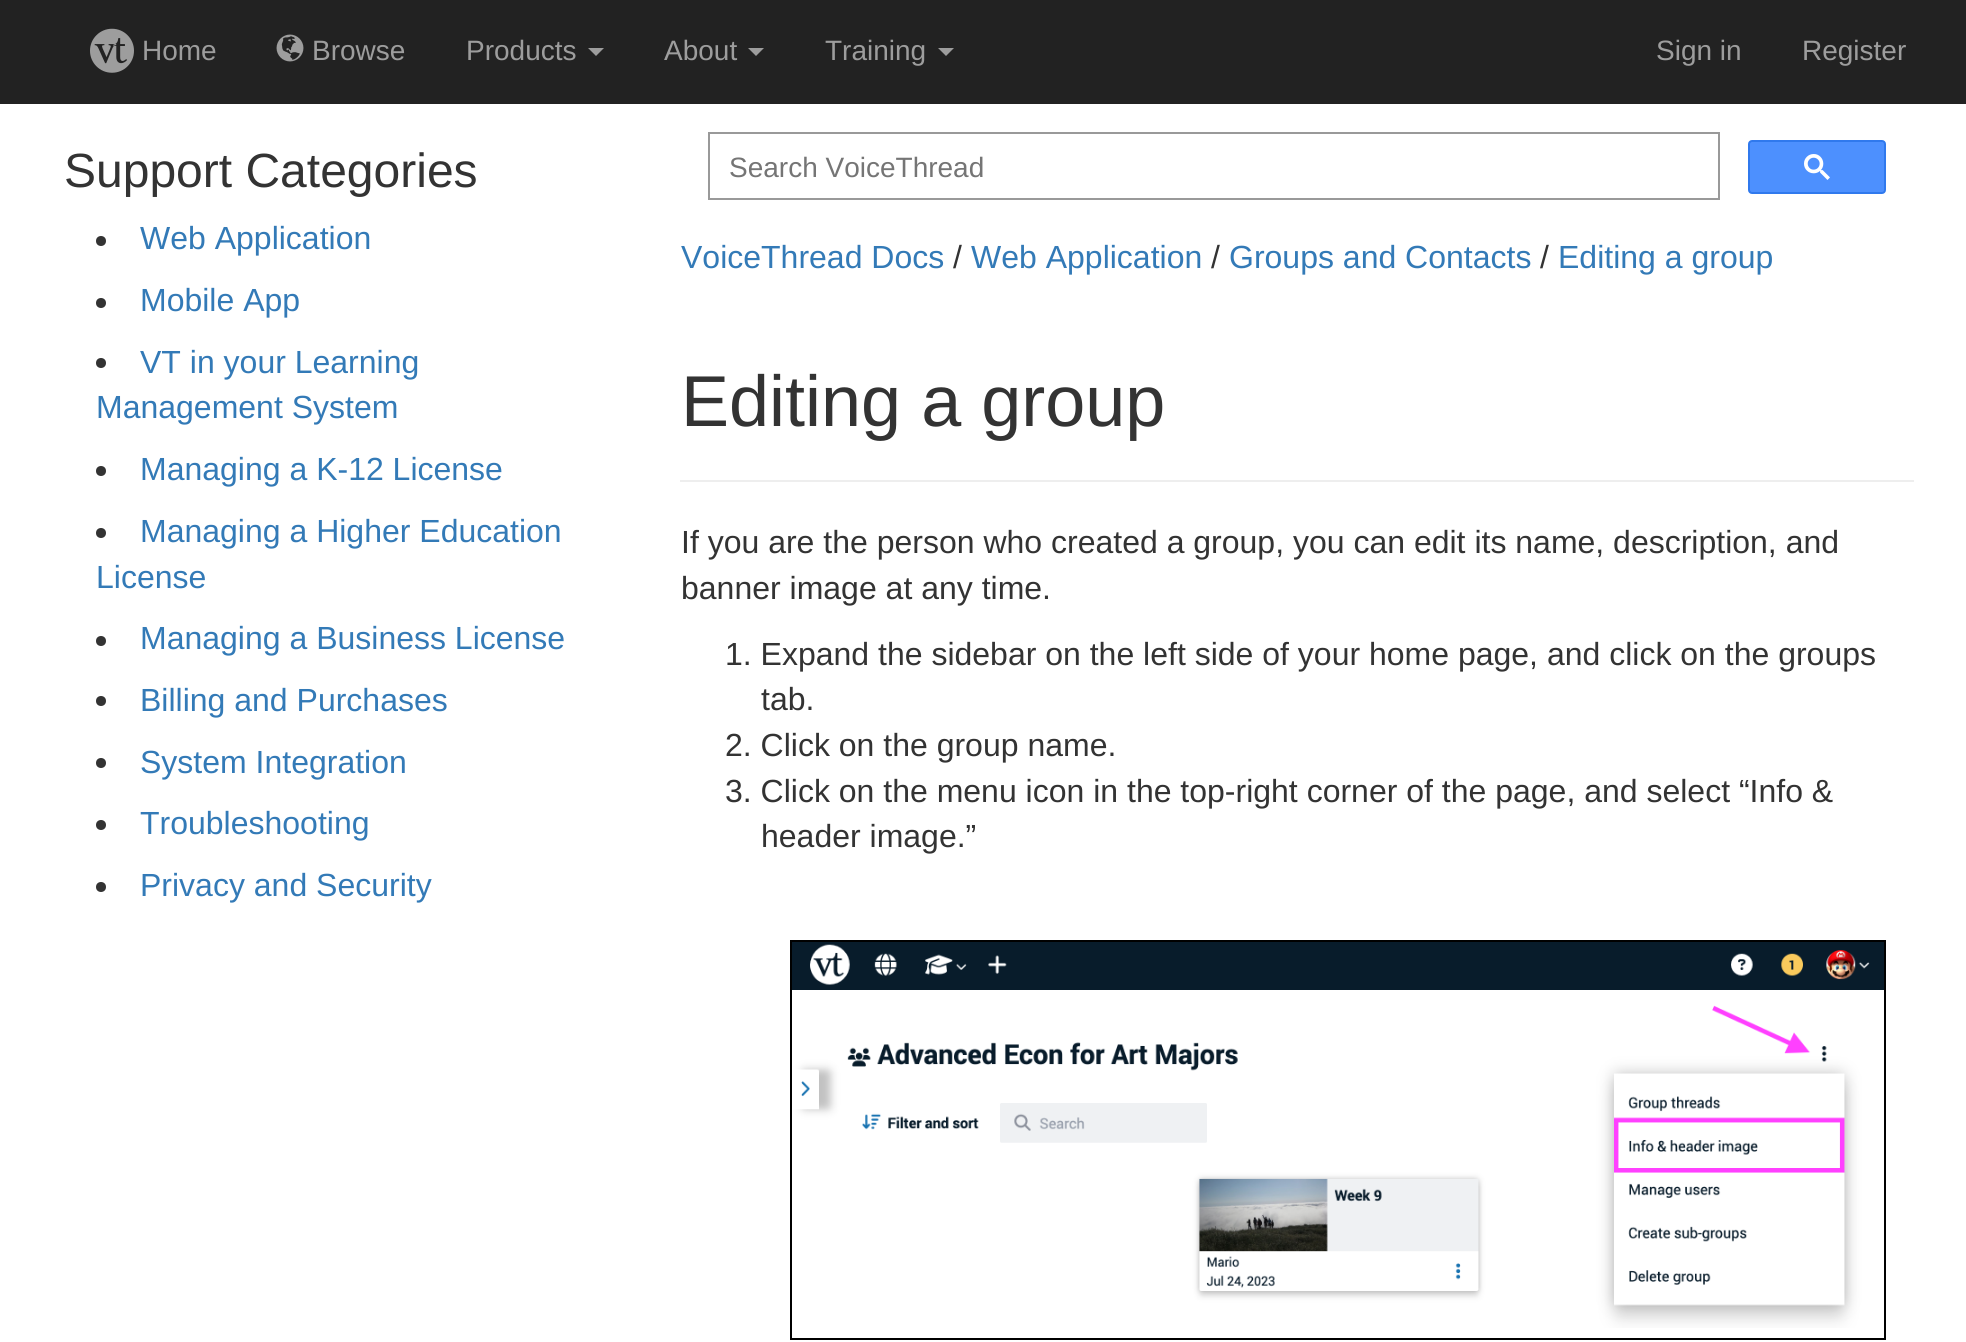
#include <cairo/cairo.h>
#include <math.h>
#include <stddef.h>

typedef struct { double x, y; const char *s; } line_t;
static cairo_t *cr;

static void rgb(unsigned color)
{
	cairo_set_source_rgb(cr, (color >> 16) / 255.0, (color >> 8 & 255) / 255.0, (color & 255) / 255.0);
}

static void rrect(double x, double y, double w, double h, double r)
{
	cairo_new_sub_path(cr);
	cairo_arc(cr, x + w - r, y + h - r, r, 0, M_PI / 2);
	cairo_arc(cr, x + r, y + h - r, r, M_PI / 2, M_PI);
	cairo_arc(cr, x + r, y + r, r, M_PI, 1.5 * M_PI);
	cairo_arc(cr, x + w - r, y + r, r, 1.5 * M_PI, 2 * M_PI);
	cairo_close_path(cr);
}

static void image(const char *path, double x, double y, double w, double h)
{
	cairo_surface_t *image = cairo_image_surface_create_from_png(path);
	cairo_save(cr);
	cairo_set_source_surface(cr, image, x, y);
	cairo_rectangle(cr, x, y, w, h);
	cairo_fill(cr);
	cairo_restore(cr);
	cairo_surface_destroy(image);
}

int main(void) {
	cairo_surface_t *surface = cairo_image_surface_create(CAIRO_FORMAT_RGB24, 1966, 1342);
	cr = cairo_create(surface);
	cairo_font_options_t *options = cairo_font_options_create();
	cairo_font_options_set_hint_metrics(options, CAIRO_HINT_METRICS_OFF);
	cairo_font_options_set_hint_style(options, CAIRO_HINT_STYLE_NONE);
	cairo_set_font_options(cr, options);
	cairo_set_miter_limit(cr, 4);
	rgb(0xffffff);
	cairo_paint(cr);
	rgb(0x222222);
	cairo_rectangle(cr, 0, 0, 1966, 104);
	cairo_fill(cr);
	image("img/1.png", 90, 28, 44, 45);
	image("img/2.png", 276, 34, 28, 28);
	rgb(0x9d9d9d);
	cairo_new_path(cr);
	cairo_move_to(cr, 588, 48);
	cairo_line_to(cr, 604, 48);
	cairo_line_to(cr, 596, 56);
	cairo_close_path(cr);
	cairo_fill(cr);
	cairo_new_path(cr);
	cairo_move_to(cr, 748, 48);
	cairo_line_to(cr, 764, 48);
	cairo_line_to(cr, 756, 56);
	cairo_close_path(cr);
	cairo_fill(cr);
	cairo_new_path(cr);
	cairo_move_to(cr, 938, 48);
	cairo_line_to(cr, 954, 48);
	cairo_line_to(cr, 946, 56);
	cairo_close_path(cr);
	cairo_fill(cr);
	rgb(0x333333);
	cairo_arc(cr, 101, 241, 5, 0, 2 * M_PI);
	cairo_fill(cr);
	cairo_arc(cr, 101, 303, 5, 0, 2 * M_PI);
	cairo_fill(cr);
	cairo_arc(cr, 101, 363, 5, 0, 2 * M_PI);
	cairo_fill(cr);
	cairo_arc(cr, 101, 471, 5, 0, 2 * M_PI);
	cairo_fill(cr);
	cairo_arc(cr, 101, 533, 5, 0, 2 * M_PI);
	cairo_fill(cr);
	cairo_arc(cr, 101, 641, 5, 0, 2 * M_PI);
	cairo_fill(cr);
	cairo_arc(cr, 101, 701, 5, 0, 2 * M_PI);
	cairo_fill(cr);
	cairo_arc(cr, 101, 763, 5, 0, 2 * M_PI);
	cairo_fill(cr);
	cairo_arc(cr, 101, 825, 5, 0, 2 * M_PI);
	cairo_fill(cr);
	cairo_arc(cr, 101, 887, 5, 0, 2 * M_PI);
	cairo_fill(cr);
	cairo_rectangle(cr, 709, 133, 1010, 66);
	rgb(0x999999);
	cairo_stroke(cr);
	rgb(0x4d90fe);
	rrect(1749, 141, 136, 52, 3);
	cairo_fill_preserve(cr);
	rgb(0x3079ed);
	cairo_stroke(cr);
	image("img/3.png", 1804, 154, 26, 26);
	rgb(0xeeeeee);
	cairo_rectangle(cr, 680, 480, 1234, 2);
	cairo_fill(cr);
	cairo_rectangle(cr, 791, 941, 1094, 398);
	rgb(0x000000);
	cairo_stroke(cr);
	image("img/4.png", 792, 942, 1092, 386);
	cairo_select_font_face(cr, "Liberation Sans", CAIRO_FONT_SLANT_NORMAL, CAIRO_FONT_WEIGHT_NORMAL);
	cairo_set_font_size(cr, 28);
	rgb(0x9d9d9d);
	{
		static const line_t items[] = {
			{142, 60, "Home"},
			{312, 60, "Browse"},
			{466, 60, "Products"},
			{664, 60, "About"},
			{825, 60, "Training"},
			{1656, 60, "Sign in"},
			{1802, 60, "Register"},
		};
		for (size_t i = 0; i < sizeof items / sizeof *items; i++) {
			cairo_move_to(cr, items[i].x, items[i].y);
			cairo_show_text(cr, items[i].s);
		}
	}
	cairo_set_font_size(cr, 48);
	rgb(0x333333);
	cairo_move_to(cr, 64, 187);
	cairo_show_text(cr, "Support Categories");
	cairo_set_font_size(cr, 32);
	rgb(0x337ab7);
	{
		static const line_t items[] = {
			{140, 249, "Web Application"},
			{140, 311, "Mobile App"},
			{140, 373, "VT in your Learning"},
			{96, 418, "Management System"},
			{140, 480, "Managing a K-12 License"},
			{140, 542, "Managing a Higher Education"},
			{96, 588, "License"},
			{140, 649, "Managing a Business License"},
			{140, 711, "Billing and Purchases"},
			{140, 773, "System Integration"},
			{140, 834, "Troubleshooting"},
			{140, 896, "Privacy and Security"},
		};
		for (size_t i = 0; i < sizeof items / sizeof *items; i++) {
			cairo_move_to(cr, items[i].x, items[i].y);
			cairo_show_text(cr, items[i].s);
		}
	}
	cairo_set_font_size(cr, 28);
	rgb(0x757575);
	cairo_move_to(cr, 729, 177);
	cairo_show_text(cr, "Search VoiceThread");
	cairo_set_font_size(cr, 32);
	rgb(0x337ab7);
	cairo_move_to(cr, 681, 268);
	cairo_show_text(cr, "VoiceThread Docs");
	rgb(0x333333);
	cairo_move_to(cr, 953, 268);
	cairo_show_text(cr, "/");
	rgb(0x337ab7);
	cairo_move_to(cr, 971, 268);
	cairo_show_text(cr, "Web Application");
	rgb(0x333333);
	cairo_move_to(cr, 1211, 268);
	cairo_show_text(cr, "/");
	rgb(0x337ab7);
	cairo_move_to(cr, 1229, 268);
	cairo_show_text(cr, "Groups and Contacts");
	rgb(0x333333);
	cairo_move_to(cr, 1540, 268);
	cairo_show_text(cr, "/");
	rgb(0x337ab7);
	cairo_move_to(cr, 1558, 268);
	cairo_show_text(cr, "Editing a group");
	cairo_set_font_size(cr, 72);
	rgb(0x333333);
	cairo_move_to(cr, 681, 426);
	cairo_show_text(cr, "Editing a group");
	cairo_set_font_size(cr, 32);
	{
		static const line_t items[] = {
			{681, 553, "If you are the person who created a group, you can edit its name, description, and"},
			{681, 599, "banner image at any time."},
			{725, 665, "1. Expand the sidebar on the left side of your home page, and click on the groups"},
			{761, 710, "tab."},
			{725, 756, "2. Click on the group name."},
			{725, 802, "3. Click on the menu icon in the top-right corner of the page, and select “Info &"},
			{761, 847, "header image.”"},
		};
		for (size_t i = 0; i < sizeof items / sizeof *items; i++) {
			cairo_move_to(cr, items[i].x, items[i].y);
			cairo_show_text(cr, items[i].s);
		}
	}
	cairo_surface_write_to_png(surface, "page.png");
	cairo_font_options_destroy(options);
	cairo_destroy(cr);
	cairo_surface_destroy(surface);
	return 0;
}
